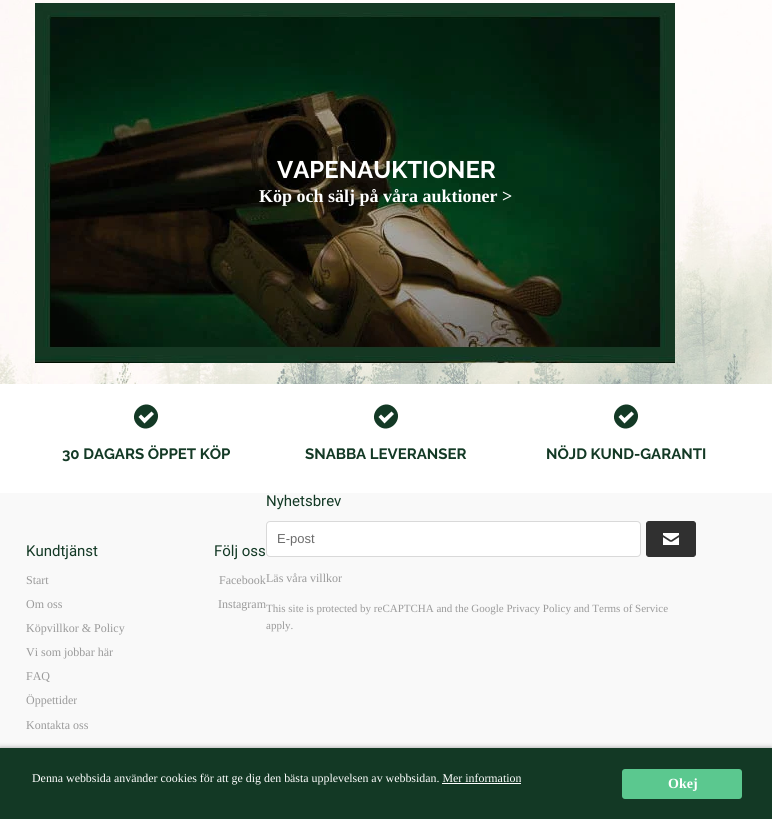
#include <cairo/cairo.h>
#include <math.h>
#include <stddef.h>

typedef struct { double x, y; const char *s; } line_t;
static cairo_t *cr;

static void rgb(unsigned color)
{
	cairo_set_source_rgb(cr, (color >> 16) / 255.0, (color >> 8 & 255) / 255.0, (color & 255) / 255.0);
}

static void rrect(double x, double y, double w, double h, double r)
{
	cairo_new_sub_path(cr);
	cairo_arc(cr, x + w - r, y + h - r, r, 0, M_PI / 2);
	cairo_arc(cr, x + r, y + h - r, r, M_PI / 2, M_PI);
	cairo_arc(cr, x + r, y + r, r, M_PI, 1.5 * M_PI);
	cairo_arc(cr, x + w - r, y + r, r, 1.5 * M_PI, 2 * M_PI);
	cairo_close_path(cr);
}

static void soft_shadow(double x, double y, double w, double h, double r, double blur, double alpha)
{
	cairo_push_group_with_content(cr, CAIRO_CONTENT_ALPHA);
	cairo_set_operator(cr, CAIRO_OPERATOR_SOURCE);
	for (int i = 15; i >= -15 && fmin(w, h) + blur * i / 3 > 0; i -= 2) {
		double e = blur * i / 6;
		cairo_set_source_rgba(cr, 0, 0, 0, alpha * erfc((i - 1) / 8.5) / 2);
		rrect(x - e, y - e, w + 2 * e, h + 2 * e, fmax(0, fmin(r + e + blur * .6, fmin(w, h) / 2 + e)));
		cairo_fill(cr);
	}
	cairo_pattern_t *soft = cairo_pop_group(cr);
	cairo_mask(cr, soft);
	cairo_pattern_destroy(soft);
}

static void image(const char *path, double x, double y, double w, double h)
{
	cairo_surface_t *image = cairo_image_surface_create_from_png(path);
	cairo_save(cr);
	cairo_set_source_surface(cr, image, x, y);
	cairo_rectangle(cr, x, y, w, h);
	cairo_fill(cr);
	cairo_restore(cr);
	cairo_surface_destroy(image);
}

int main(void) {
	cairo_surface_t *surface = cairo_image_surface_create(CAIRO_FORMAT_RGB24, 772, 819);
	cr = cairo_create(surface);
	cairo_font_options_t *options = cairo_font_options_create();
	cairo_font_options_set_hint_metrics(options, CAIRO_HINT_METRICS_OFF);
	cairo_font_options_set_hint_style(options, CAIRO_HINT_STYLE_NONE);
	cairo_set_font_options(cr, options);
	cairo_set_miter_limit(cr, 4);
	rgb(0xf9f9f9);
	cairo_paint(cr);
	image("img/1.png", 0, 0, 772, 384);
	image("img/2.png", 35, 3, 640, 360);
	rgb(0xffffff);
	cairo_rectangle(cr, 0, 384, 772, 109);
	cairo_fill(cr);
	rgb(0x133925);
	cairo_new_path(cr);
	cairo_move_to(cr, 144.5, 423.5);
	cairo_line_to(cr, 154, 414);
	cairo_line_to(cr, 151.5, 411.5);
	cairo_line_to(cr, 144.5, 418);
	cairo_line_to(cr, 141, 414.5);
	cairo_line_to(cr, 138.5, 417);
	cairo_close_path(cr);
	cairo_move_to(cr, 154.5, 408);
	cairo_curve_to(cr, 165.5, 419, 148.5, 436, 137.5, 425);
	cairo_curve_to(cr, 126.5, 414, 143.5, 397, 154.5, 408);
	cairo_close_path(cr);
	cairo_fill(cr);
	cairo_new_path(cr);
	cairo_move_to(cr, 384.5, 423.5);
	cairo_line_to(cr, 394, 414);
	cairo_line_to(cr, 391.5, 411.5);
	cairo_line_to(cr, 384.5, 418);
	cairo_line_to(cr, 381, 414.5);
	cairo_line_to(cr, 378.5, 417);
	cairo_close_path(cr);
	cairo_move_to(cr, 394.5, 408);
	cairo_curve_to(cr, 405.5, 419, 388.5, 436, 377.5, 425);
	cairo_curve_to(cr, 366.5, 414, 383.5, 397, 394.5, 408);
	cairo_close_path(cr);
	cairo_fill(cr);
	cairo_new_path(cr);
	cairo_move_to(cr, 624.5, 423.5);
	cairo_line_to(cr, 634, 414);
	cairo_line_to(cr, 631.5, 411.5);
	cairo_line_to(cr, 624.5, 418);
	cairo_line_to(cr, 621, 414.5);
	cairo_line_to(cr, 618.5, 417);
	cairo_close_path(cr);
	cairo_move_to(cr, 634.5, 408);
	cairo_curve_to(cr, 645.5, 419, 628.5, 436, 617.5, 425);
	cairo_curve_to(cr, 606.5, 414, 623.5, 397, 634.5, 408);
	cairo_close_path(cr);
	cairo_fill(cr);
	rgb(0xffffff);
	rrect(266.5, 521.5, 374, 35, 3.5);
	cairo_fill_preserve(cr);
	rgb(0xd9d9d9);
	cairo_set_line_width(cr, 1);
	cairo_stroke(cr);
	rgb(0x303030);
	rrect(646.5, 521.5, 49, 35, 2.5);
	cairo_fill_preserve(cr);
	cairo_stroke(cr);
	image("img/3.png", 663, 533, 16, 12);
	rgb(0x999999);
	soft_shadow(0, 748, 772, 71, 0, 2.5, 1);
	rgb(0x133925);
	cairo_rectangle(cr, 0, 748, 772, 71);
	cairo_fill(cr);
	rgb(0xffffff);
	cairo_rectangle(cr, 442, 783, 79, 1);
	cairo_fill(cr);
	rgb(0x5bc88f);
	rrect(622, 769, 120, 30, 3);
	cairo_fill(cr);
	cairo_select_font_face(cr, "Raleway", CAIRO_FONT_SLANT_NORMAL, CAIRO_FONT_WEIGHT_BOLD);
	cairo_set_font_size(cr, 24);
	rgb(0xffffff);
	cairo_move_to(cr, 277, 178);
	cairo_show_text(cr, "VAPENAUKTIONER");
	cairo_select_font_face(cr, "Liberation Serif", CAIRO_FONT_SLANT_NORMAL, CAIRO_FONT_WEIGHT_BOLD);
	cairo_set_font_size(cr, 18);
	cairo_move_to(cr, 259, 202);
	cairo_show_text(cr, "Köp och sälj på våra auktioner >");
	cairo_select_font_face(cr, "Raleway", CAIRO_FONT_SLANT_NORMAL, CAIRO_FONT_WEIGHT_BOLD);
	cairo_set_font_size(cr, 15);
	rgb(0x133925);
	{
		static const line_t items[] = {
			{62, 459, "30 DAGARS ÖPPET KÖP"},
			{305, 459, "SNABBA LEVERANSER"},
			{546, 459, "NÖJD KUND-GARANTI"},
		};
		for (size_t i = 0; i < sizeof items / sizeof *items; i++) {
			cairo_move_to(cr, items[i].x, items[i].y);
			cairo_show_text(cr, items[i].s);
		}
	}
	cairo_select_font_face(cr, "Roboto", CAIRO_FONT_SLANT_NORMAL, CAIRO_FONT_WEIGHT_NORMAL);
	cairo_move_to(cr, 26, 556);
	cairo_show_text(cr, "Kundtjänst");
	cairo_select_font_face(cr, "Liberation Serif", CAIRO_FONT_SLANT_NORMAL, CAIRO_FONT_WEIGHT_NORMAL);
	cairo_set_font_size(cr, 12);
	rgb(0x9a9a9a);
	{
		static const line_t items[] = {
			{26, 584, "Start"},
			{26, 608, "Om oss"},
			{26, 632, "Köpvillkor & Policy"},
			{26, 656, "Vi som jobbar här"},
			{26, 680, "FAQ"},
			{26, 704, "Öppettider"},
			{26, 729, "Kontakta oss"},
		};
		for (size_t i = 0; i < sizeof items / sizeof *items; i++) {
			cairo_move_to(cr, items[i].x, items[i].y);
			cairo_show_text(cr, items[i].s);
		}
	}
	cairo_select_font_face(cr, "Roboto", CAIRO_FONT_SLANT_NORMAL, CAIRO_FONT_WEIGHT_NORMAL);
	cairo_set_font_size(cr, 15);
	rgb(0x133925);
	cairo_move_to(cr, 214, 556);
	cairo_show_text(cr, "Följ oss");
	cairo_select_font_face(cr, "Liberation Serif", CAIRO_FONT_SLANT_NORMAL, CAIRO_FONT_WEIGHT_NORMAL);
	cairo_set_font_size(cr, 12);
	rgb(0x9a9a9a);
	cairo_move_to(cr, 219, 584);
	cairo_show_text(cr, "Facebook");
	cairo_move_to(cr, 218, 608);
	cairo_show_text(cr, "Instagram");
	cairo_select_font_face(cr, "Roboto", CAIRO_FONT_SLANT_NORMAL, CAIRO_FONT_WEIGHT_NORMAL);
	cairo_set_font_size(cr, 15);
	rgb(0x133925);
	cairo_move_to(cr, 266, 506);
	cairo_show_text(cr, "Nyhetsbrev");
	cairo_select_font_face(cr, "Liberation Sans", CAIRO_FONT_SLANT_NORMAL, CAIRO_FONT_WEIGHT_NORMAL);
	cairo_set_font_size(cr, 13);
	rgb(0x6c6c6c);
	cairo_move_to(cr, 277, 543);
	cairo_show_text(cr, "E-post");
	cairo_select_font_face(cr, "Liberation Serif", CAIRO_FONT_SLANT_NORMAL, CAIRO_FONT_WEIGHT_NORMAL);
	cairo_set_font_size(cr, 12);
	rgb(0x9a9a9a);
	cairo_move_to(cr, 266, 582);
	cairo_show_text(cr, "Läs våra villkor");
	cairo_set_font_size(cr, 11);
	cairo_move_to(cr, 266, 612);
	cairo_show_text(cr, "This site is protected by reCAPTCHA and the Google Privacy Policy and Terms of Service");
	cairo_move_to(cr, 266, 629);
	cairo_show_text(cr, "apply.");
	cairo_set_font_size(cr, 11.9);
	rgb(0xffffff);
	cairo_move_to(cr, 32, 782);
	cairo_show_text(cr, "Denna webbsida använder cookies för att ge dig den bästa upplevelsen av webbsidan. Mer information");
	cairo_select_font_face(cr, "Liberation Serif", CAIRO_FONT_SLANT_NORMAL, CAIRO_FONT_WEIGHT_BOLD);
	cairo_set_font_size(cr, 14);
	cairo_move_to(cr, 668, 788);
	cairo_show_text(cr, "Okej");
	cairo_surface_write_to_png(surface, "page.png");
	cairo_font_options_destroy(options);
	cairo_destroy(cr);
	cairo_surface_destroy(surface);
	return 0;
}
